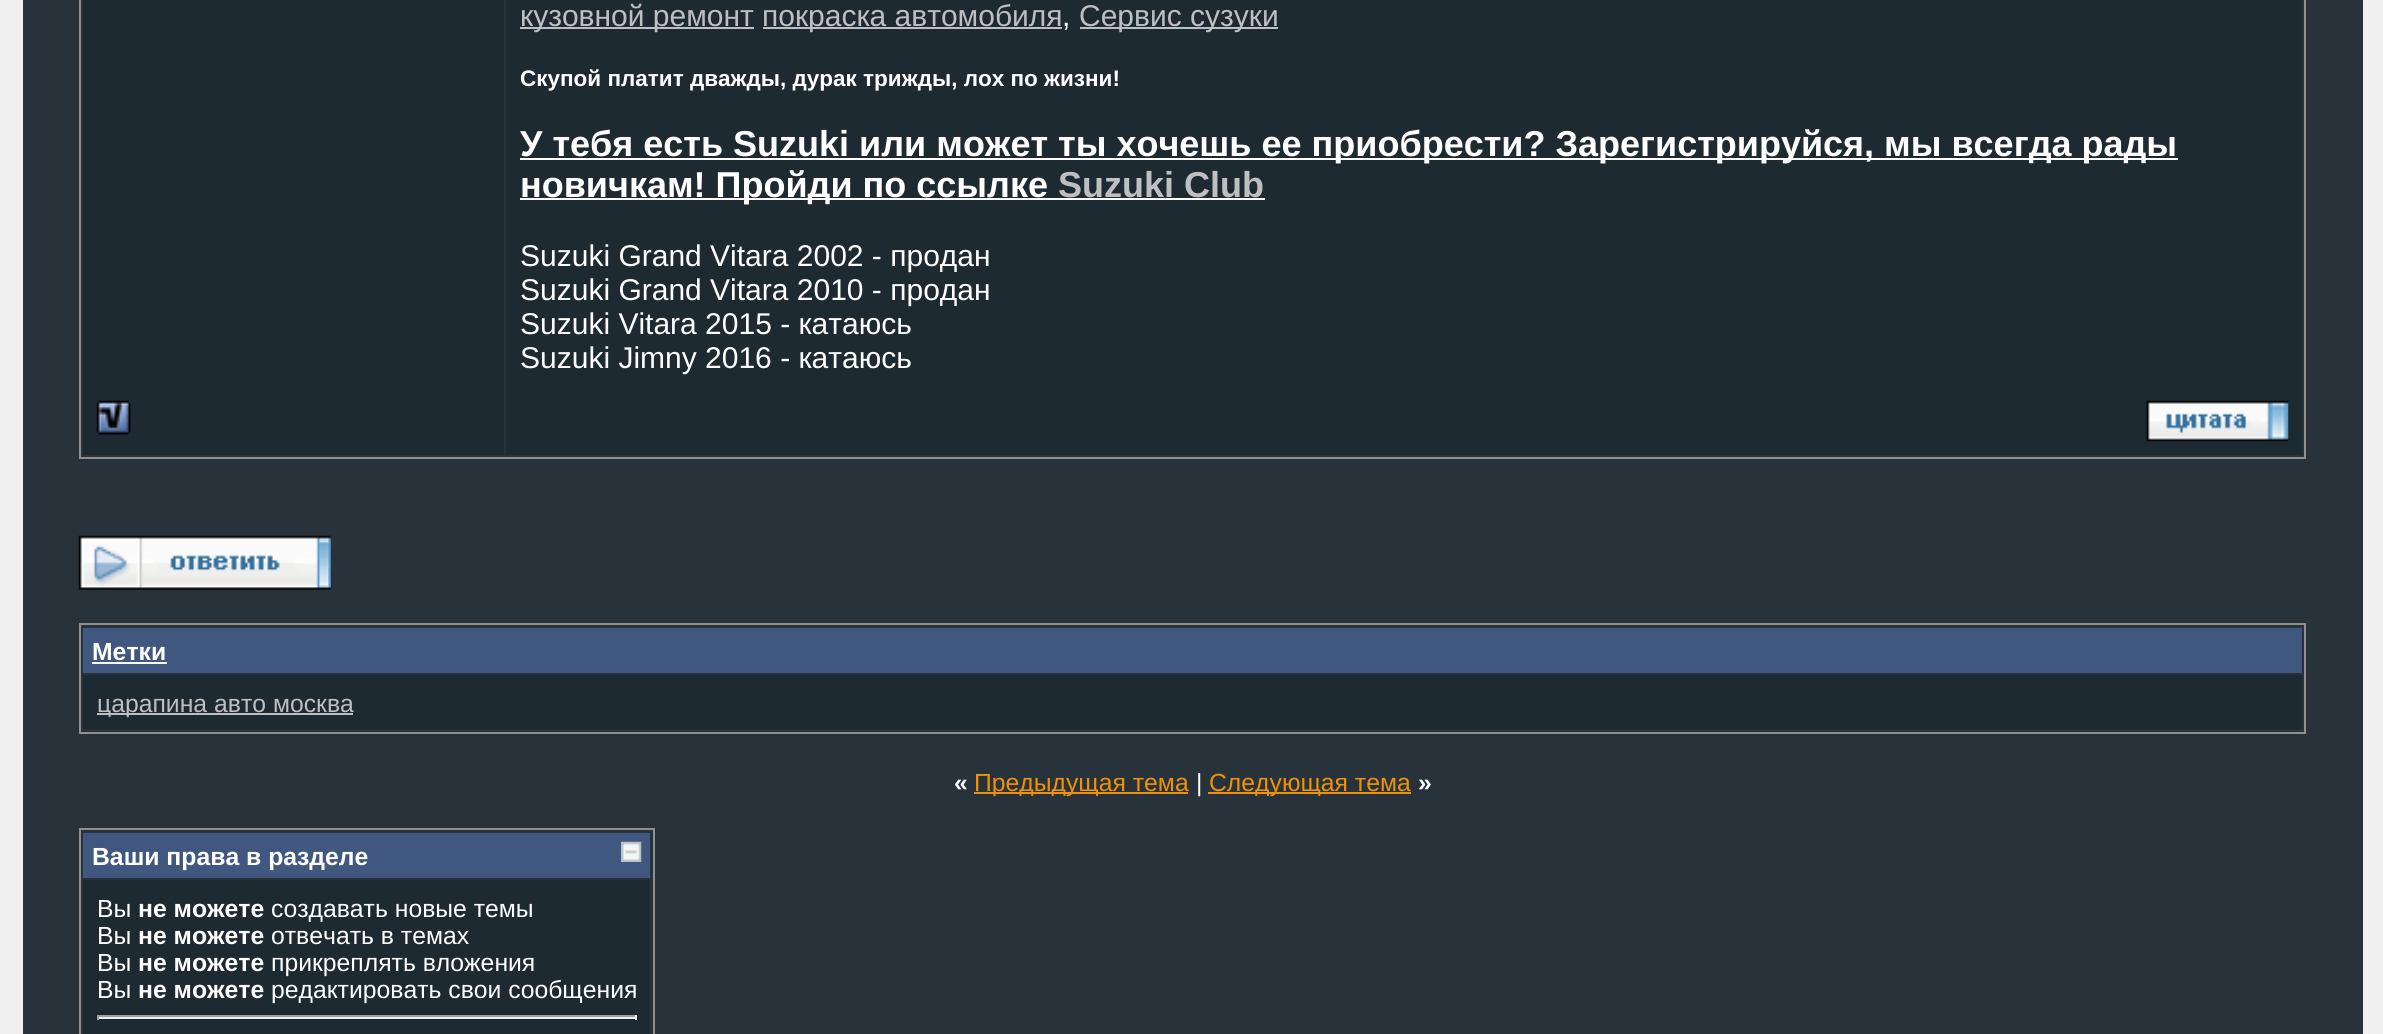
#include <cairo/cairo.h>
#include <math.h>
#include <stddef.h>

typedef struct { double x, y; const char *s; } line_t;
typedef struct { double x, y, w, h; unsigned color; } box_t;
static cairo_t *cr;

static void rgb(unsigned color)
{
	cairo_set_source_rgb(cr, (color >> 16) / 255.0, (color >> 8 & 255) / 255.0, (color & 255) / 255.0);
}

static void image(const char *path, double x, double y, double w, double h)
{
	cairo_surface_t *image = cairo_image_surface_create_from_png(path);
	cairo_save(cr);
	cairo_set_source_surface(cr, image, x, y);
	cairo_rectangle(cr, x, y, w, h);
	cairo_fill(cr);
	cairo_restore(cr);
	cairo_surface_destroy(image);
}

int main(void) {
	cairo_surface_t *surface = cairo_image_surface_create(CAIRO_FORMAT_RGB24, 2383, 1034);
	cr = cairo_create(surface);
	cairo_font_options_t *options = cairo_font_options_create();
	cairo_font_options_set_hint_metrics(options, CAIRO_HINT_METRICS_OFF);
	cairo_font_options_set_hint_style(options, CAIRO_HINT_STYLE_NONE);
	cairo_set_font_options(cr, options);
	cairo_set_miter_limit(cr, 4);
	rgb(0xf0f0f1);
	cairo_paint(cr);
	rgb(0x27323a);
	cairo_rectangle(cr, 23, 0, 2340, 1034);
	cairo_fill(cr);
	cairo_rectangle(cr, 80, -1, 2225, 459);
	rgb(0x8f8f90);
	cairo_stroke(cr);
	{
		static const box_t items[] = {
			{83, 0, 421, 455, 0x1e2a32},
			{506, 0, 1796, 455, 0x1e2a32},
			{520, 27, 234, 2, 0xbdbfc0},
			{763, 27, 299, 2, 0xbdbfc0},
			{1080, 27, 198, 2, 0xbdbfc0},
			{520, 158, 1658, 2, 0xffffff},
			{520, 198, 745, 2, 0xffffff},
		};
		for (size_t i = 0; i < sizeof items / sizeof *items; i++) {
			rgb(items[i].color);
			cairo_rectangle(cr, items[i].x, items[i].y, items[i].w, items[i].h);
			cairo_fill(cr);
		}
	}
	image("img/1.png", 96, 400, 35, 35);
	image("img/2.png", 2146, 400, 143, 42);
	image("img/3.png", 78, 535, 253, 55);
	cairo_rectangle(cr, 80, 624, 2225, 109);
	rgb(0x8f8f90);
	cairo_stroke(cr);
	{
		static const box_t items[] = {
			{83, 628, 2219, 45, 0x405780},
			{92, 662, 75, 2, 0xffffff},
			{83, 675, 2219, 54, 0x1e2a32},
			{97, 713, 256, 2, 0xbdbfc0},
			{974, 792, 214, 2, 0xef9109},
			{1208, 792, 203, 2, 0xef9109},
		};
		for (size_t i = 0; i < sizeof items / sizeof *items; i++) {
			rgb(items[i].color);
			cairo_rectangle(cr, items[i].x, items[i].y, items[i].w, items[i].h);
			cairo_fill(cr);
		}
	}
	cairo_rectangle(cr, 80, 829, 574, 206);
	rgb(0x8f8f90);
	cairo_stroke(cr);
	rgb(0x405780);
	cairo_rectangle(cr, 83, 833, 567, 45);
	cairo_fill(cr);
	image("img/4.png", 621, 841, 21, 21);
	{
		static const box_t items[] = {
			{83, 880, 567, 154, 0x1e2a32},
			{97, 1015, 540, 2, 0x9f9f9f},
			{635, 1015, 2, 5, 0xeeeeee},
			{97, 1017, 540, 2, 0xeeeeee},
			{97, 1015, 2, 5, 0x9f9f9f},
		};
		for (size_t i = 0; i < sizeof items / sizeof *items; i++) {
			rgb(items[i].color);
			cairo_rectangle(cr, items[i].x, items[i].y, items[i].w, items[i].h);
			cairo_fill(cr);
		}
	}
	cairo_select_font_face(cr, "Liberation Sans", CAIRO_FONT_SLANT_NORMAL, CAIRO_FONT_WEIGHT_NORMAL);
	cairo_set_font_size(cr, 30);
	rgb(0xbdbfc0);
	cairo_move_to(cr, 520, 26);
	cairo_show_text(cr, "кузовной ремонт");
	cairo_move_to(cr, 762, 26);
	cairo_show_text(cr, "покраска автомобиля");
	rgb(0xffffff);
	cairo_move_to(cr, 1062, 26);
	cairo_show_text(cr, ",");
	rgb(0xbdbfc0);
	cairo_move_to(cr, 1079, 26);
	cairo_show_text(cr, "Сервис сузуки");
	cairo_select_font_face(cr, "Liberation Sans", CAIRO_FONT_SLANT_NORMAL, CAIRO_FONT_WEIGHT_BOLD);
	cairo_set_font_size(cr, 22.5);
	rgb(0xffffff);
	cairo_move_to(cr, 520, 86);
	cairo_show_text(cr, "Скупой платит дважды, дурак трижды, лох по жизни!");
	cairo_set_font_size(cr, 36);
	cairo_move_to(cr, 520, 156);
	cairo_show_text(cr, "У тебя есть Suzuki или может ты хочешь ее приобрести? Зарегистрируйся, мы всегда рады");
	cairo_move_to(cr, 520, 197);
	cairo_show_text(cr, "новичкам! Пройди по ссылке");
	rgb(0xbdbfc0);
	cairo_move_to(cr, 1058, 197);
	cairo_show_text(cr, "Suzuki Club");
	cairo_select_font_face(cr, "Liberation Sans", CAIRO_FONT_SLANT_NORMAL, CAIRO_FONT_WEIGHT_NORMAL);
	cairo_set_font_size(cr, 30);
	rgb(0xffffff);
	{
		static const line_t items[] = {
			{520, 266, "Suzuki Grand Vitara 2002 - продан"},
			{520, 300, "Suzuki Grand Vitara 2010 - продан"},
			{520, 334, "Suzuki Vitara 2015 - катаюсь"},
			{520, 368, "Suzuki Jimny 2016 - катаюсь"},
		};
		for (size_t i = 0; i < sizeof items / sizeof *items; i++) {
			cairo_move_to(cr, items[i].x, items[i].y);
			cairo_show_text(cr, items[i].s);
		}
	}
	cairo_select_font_face(cr, "Liberation Sans", CAIRO_FONT_SLANT_NORMAL, CAIRO_FONT_WEIGHT_BOLD);
	cairo_set_font_size(cr, 24.75);
	cairo_move_to(cr, 92, 660);
	cairo_show_text(cr, "Метки");
	cairo_select_font_face(cr, "Liberation Sans", CAIRO_FONT_SLANT_NORMAL, CAIRO_FONT_WEIGHT_NORMAL);
	rgb(0xbdbfc0);
	cairo_move_to(cr, 97, 712);
	cairo_show_text(cr, "царапина авто москва");
	cairo_select_font_face(cr, "Liberation Sans", CAIRO_FONT_SLANT_NORMAL, CAIRO_FONT_WEIGHT_BOLD);
	rgb(0xffffff);
	cairo_move_to(cr, 954, 791);
	cairo_show_text(cr, "«");
	cairo_select_font_face(cr, "Liberation Sans", CAIRO_FONT_SLANT_NORMAL, CAIRO_FONT_WEIGHT_NORMAL);
	rgb(0xef9109);
	cairo_move_to(cr, 974, 791);
	cairo_show_text(cr, "Предыдущая тема");
	rgb(0xffffff);
	cairo_move_to(cr, 1196, 791);
	cairo_show_text(cr, "|");
	rgb(0xef9109);
	cairo_move_to(cr, 1209, 791);
	cairo_show_text(cr, "Следующая тема");
	cairo_select_font_face(cr, "Liberation Sans", CAIRO_FONT_SLANT_NORMAL, CAIRO_FONT_WEIGHT_BOLD);
	rgb(0xffffff);
	cairo_move_to(cr, 1418, 791);
	cairo_show_text(cr, "»");
	cairo_move_to(cr, 92, 865);
	cairo_show_text(cr, "Ваши права в разделе");
	cairo_select_font_face(cr, "Liberation Sans", CAIRO_FONT_SLANT_NORMAL, CAIRO_FONT_WEIGHT_NORMAL);
	cairo_move_to(cr, 97, 917);
	cairo_show_text(cr, "Вы");
	cairo_select_font_face(cr, "Liberation Sans", CAIRO_FONT_SLANT_NORMAL, CAIRO_FONT_WEIGHT_BOLD);
	cairo_move_to(cr, 138, 917);
	cairo_show_text(cr, "не можете");
	cairo_select_font_face(cr, "Liberation Sans", CAIRO_FONT_SLANT_NORMAL, CAIRO_FONT_WEIGHT_NORMAL);
	cairo_move_to(cr, 271, 917);
	cairo_show_text(cr, "создавать новые темы");
	cairo_move_to(cr, 97, 944);
	cairo_show_text(cr, "Вы");
	cairo_select_font_face(cr, "Liberation Sans", CAIRO_FONT_SLANT_NORMAL, CAIRO_FONT_WEIGHT_BOLD);
	cairo_move_to(cr, 138, 944);
	cairo_show_text(cr, "не можете");
	cairo_select_font_face(cr, "Liberation Sans", CAIRO_FONT_SLANT_NORMAL, CAIRO_FONT_WEIGHT_NORMAL);
	cairo_move_to(cr, 271, 944);
	cairo_show_text(cr, "отвечать в темах");
	cairo_move_to(cr, 97, 971);
	cairo_show_text(cr, "Вы");
	cairo_select_font_face(cr, "Liberation Sans", CAIRO_FONT_SLANT_NORMAL, CAIRO_FONT_WEIGHT_BOLD);
	cairo_move_to(cr, 138, 971);
	cairo_show_text(cr, "не можете");
	cairo_select_font_face(cr, "Liberation Sans", CAIRO_FONT_SLANT_NORMAL, CAIRO_FONT_WEIGHT_NORMAL);
	cairo_move_to(cr, 271, 971);
	cairo_show_text(cr, "прикреплять вложения");
	cairo_move_to(cr, 97, 998);
	cairo_show_text(cr, "Вы");
	cairo_select_font_face(cr, "Liberation Sans", CAIRO_FONT_SLANT_NORMAL, CAIRO_FONT_WEIGHT_BOLD);
	cairo_move_to(cr, 138, 998);
	cairo_show_text(cr, "не можете");
	cairo_select_font_face(cr, "Liberation Sans", CAIRO_FONT_SLANT_NORMAL, CAIRO_FONT_WEIGHT_NORMAL);
	cairo_move_to(cr, 271, 998);
	cairo_show_text(cr, "редактировать свои сообщения");
	cairo_surface_write_to_png(surface, "page.png");
	cairo_font_options_destroy(options);
	cairo_destroy(cr);
	cairo_surface_destroy(surface);
	return 0;
}
